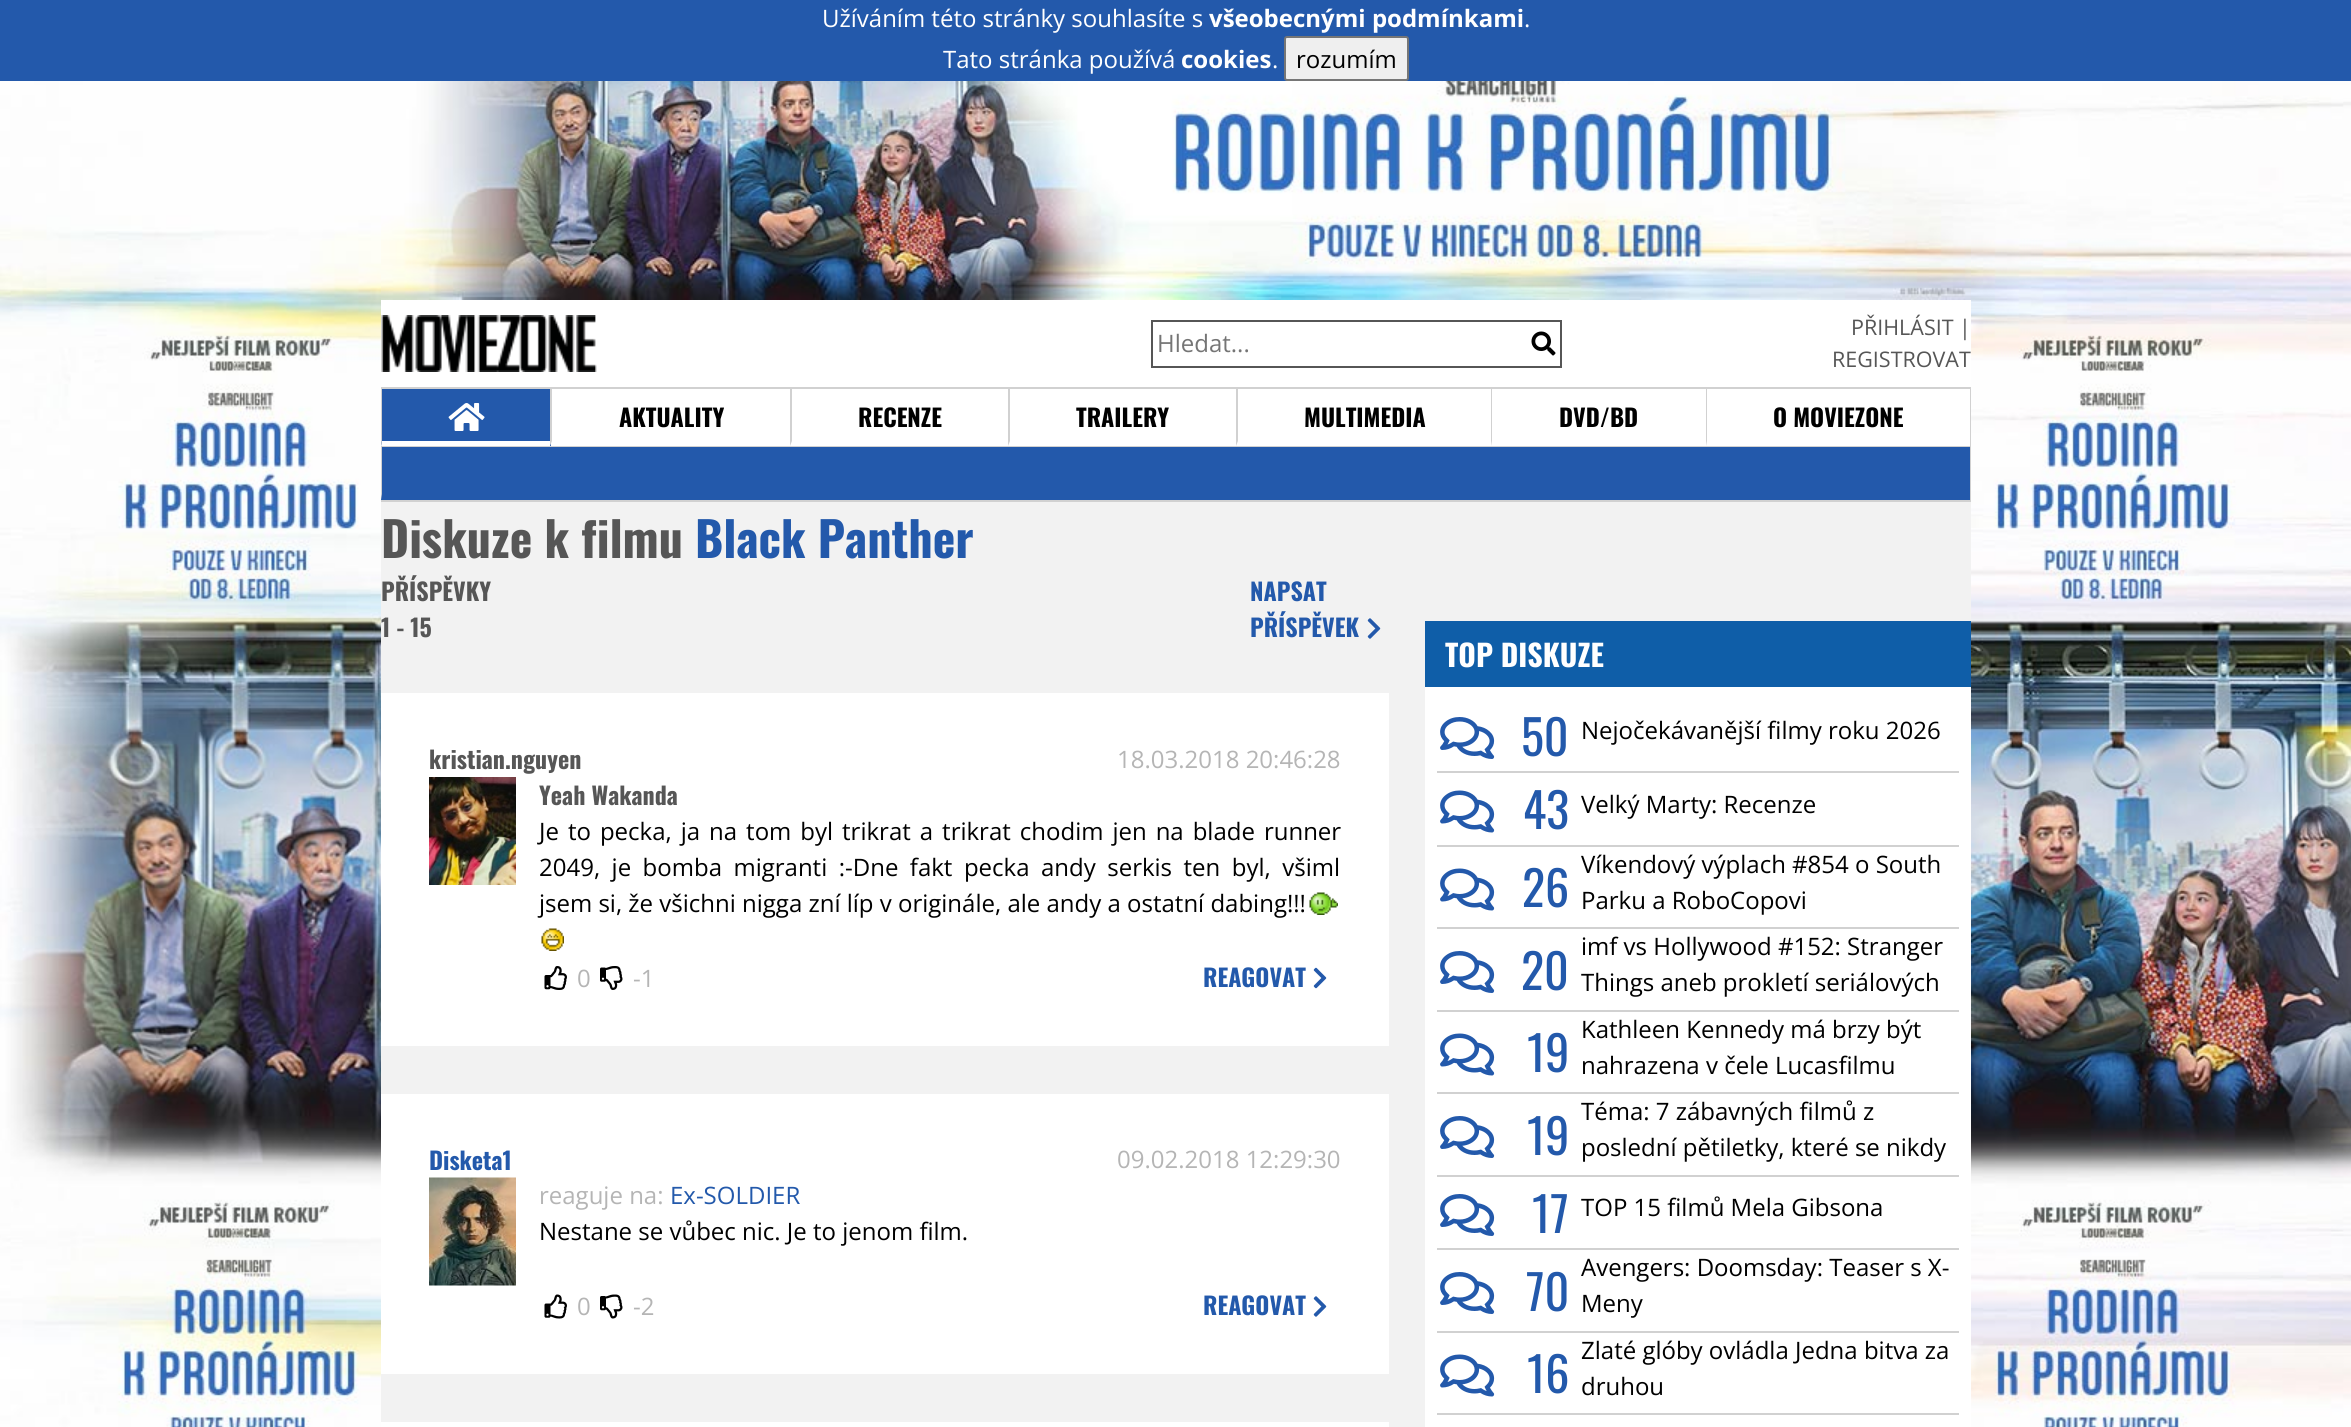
#include <cairo/cairo.h>
#include <math.h>
#include <stddef.h>

typedef struct { double x, y; const char *s; } line_t;
typedef struct { double x, y, w, h; unsigned color; } box_t;
static cairo_t *cr;

static void rgb(unsigned color)
{
	cairo_set_source_rgb(cr, (color >> 16) / 255.0, (color >> 8 & 255) / 255.0, (color & 255) / 255.0);
}

static void tracked(double x, double y, const char *s, double letter, double word)
{
	cairo_move_to(cr, x, y);
	while (*s) {
		char ch[5] = {0};
		int n = 0;
		do ch[n++] = *s++; while ((*s & 0xC0) == 0x80);
		cairo_show_text(cr, ch);
		cairo_rel_move_to(cr, letter + word * (*ch == ' '), 0);
	}
}

static void rrect(double x, double y, double w, double h, double r)
{
	cairo_new_sub_path(cr);
	cairo_arc(cr, x + w - r, y + h - r, r, 0, M_PI / 2);
	cairo_arc(cr, x + r, y + h - r, r, M_PI / 2, M_PI);
	cairo_arc(cr, x + r, y + r, r, M_PI, 1.5 * M_PI);
	cairo_arc(cr, x + w - r, y + r, r, 1.5 * M_PI, 2 * M_PI);
	cairo_close_path(cr);
}

static void image(const char *path, double x, double y, double w, double h)
{
	cairo_surface_t *image = cairo_image_surface_create_from_png(path);
	cairo_save(cr);
	cairo_set_source_surface(cr, image, x, y);
	cairo_rectangle(cr, x, y, w, h);
	cairo_fill(cr);
	cairo_restore(cr);
	cairo_surface_destroy(image);
}

int main(void) {
	cairo_surface_t *surface = cairo_image_surface_create(CAIRO_FORMAT_RGB24, 2351, 1427);
	cr = cairo_create(surface);
	cairo_font_options_t *options = cairo_font_options_create();
	cairo_font_options_set_hint_metrics(options, CAIRO_HINT_METRICS_OFF);
	cairo_font_options_set_hint_style(options, CAIRO_HINT_STYLE_NONE);
	cairo_set_font_options(cr, options);
	cairo_set_miter_limit(cr, 4);
	rgb(0xf2f2f2);
	cairo_paint(cr);
	rgb(0x2359ab);
	cairo_rectangle(cr, 0, 0, 2351, 81);
	cairo_fill(cr);
	rgb(0xefefef);
	rrect(1285, 37, 123, 43, 2);
	cairo_fill_preserve(cr);
	rgb(0x767676);
	cairo_stroke(cr);
	image("img/1.png", 0, 81, 381, 1346);
	image("img/2.png", 381, 81, 1590, 219);
	image("img/3.png", 1971, 81, 380, 1346);
	rgb(0xffffff);
	cairo_rectangle(cr, 381, 300, 1590, 87);
	cairo_fill(cr);
	image("img/4.png", 381, 315, 216, 57);
	{
		static const box_t items[] = {
			{1151, 320, 411, 2, 0x565656},
			{1151, 366, 375, 2, 0x565656},
			{1151, 320, 2, 48, 0x565656},
			{1560, 320, 2, 48, 0x565656},
			{1526, 366, 36, 2, 0x565656},
		};
		for (size_t i = 0; i < sizeof items / sizeof *items; i++) {
			rgb(items[i].color);
			cairo_rectangle(cr, items[i].x, items[i].y, items[i].w, items[i].h);
			cairo_fill(cr);
		}
	}
	image("img/5.png", 1531, 331, 25, 25);
	{
		static const box_t items[] = {
			{551, 389, 1419, 57, 0xffffff},
			{381, 387, 1590, 2, 0xd1d1d1},
			{1970, 387, 1, 114, 0xd1d1d1},
			{381, 446, 1590, 1, 0xd1d1d1},
			{381, 389, 170, 57, 0x2359ab},
		};
		for (size_t i = 0; i < sizeof items / sizeof *items; i++) {
			rgb(items[i].color);
			cairo_rectangle(cr, items[i].x, items[i].y, items[i].w, items[i].h);
			cairo_fill(cr);
		}
	}
	rgb(0xffffff);
	cairo_new_path(cr);
	cairo_move_to(cr, 550, 446);
	cairo_line_to(cr, 381, 446);
	cairo_line_to(cr, 382, 441);
	cairo_line_to(cr, 550, 441);
	cairo_close_path(cr);
	cairo_fill(cr);
	rgb(0xd1d1d1);
	cairo_new_path(cr);
	cairo_move_to(cr, 381, 446);
	cairo_line_to(cr, 381, 388);
	cairo_line_to(cr, 382, 388);
	cairo_line_to(cr, 382, 441);
	cairo_close_path(cr);
	cairo_fill(cr);
	image("img/6.png", 448, 403, 37, 28);
	cairo_new_path(cr);
	cairo_move_to(cr, 550, 446);
	cairo_line_to(cr, 550, 388);
	cairo_line_to(cr, 552, 388);
	cairo_line_to(cr, 552, 441);
	cairo_close_path(cr);
	cairo_fill(cr);
	cairo_new_path(cr);
	cairo_move_to(cr, 790, 446);
	cairo_line_to(cr, 790, 388);
	cairo_line_to(cr, 792, 388);
	cairo_line_to(cr, 792, 441);
	cairo_close_path(cr);
	cairo_fill(cr);
	cairo_new_path(cr);
	cairo_move_to(cr, 1008, 446);
	cairo_line_to(cr, 1008, 388);
	cairo_line_to(cr, 1010, 388);
	cairo_line_to(cr, 1010, 441);
	cairo_close_path(cr);
	cairo_fill(cr);
	cairo_new_path(cr);
	cairo_move_to(cr, 1236, 446);
	cairo_line_to(cr, 1236, 388);
	cairo_line_to(cr, 1238, 388);
	cairo_line_to(cr, 1238, 441);
	cairo_close_path(cr);
	cairo_fill(cr);
	cairo_new_path(cr);
	cairo_move_to(cr, 1491, 446);
	cairo_line_to(cr, 1491, 388);
	cairo_line_to(cr, 1492, 388);
	cairo_line_to(cr, 1492, 441);
	cairo_close_path(cr);
	cairo_fill(cr);
	cairo_new_path(cr);
	cairo_move_to(cr, 1706, 446);
	cairo_line_to(cr, 1706, 388);
	cairo_line_to(cr, 1707, 388);
	cairo_line_to(cr, 1707, 441);
	cairo_close_path(cr);
	cairo_fill(cr);
	rgb(0x2359ab);
	cairo_rectangle(cr, 381, 447, 1589, 53);
	cairo_fill(cr);
	rgb(0xd1d1d1);
	cairo_rectangle(cr, 381, 500, 1590, 2);
	cairo_fill(cr);
	cairo_new_path(cr);
	cairo_move_to(cr, 381, 500);
	cairo_line_to(cr, 381, 447);
	cairo_line_to(cr, 382, 447);
	cairo_line_to(cr, 382, 494);
	cairo_close_path(cr);
	cairo_fill(cr);
	image("img/7.png", 1367, 618, 14, 21);
	rgb(0xffffff);
	cairo_rectangle(cr, 381, 693, 1008, 353);
	cairo_fill(cr);
	image("img/8.png", 429, 777, 87, 108);
	image("img/9.png", 1309, 892, 29, 23);
	image("img/10.png", 541, 928, 23, 23);
	image("img/11.png", 544, 966, 23, 24);
	image("img/12.png", 600, 966, 23, 24);
	image("img/13.png", 1313, 967, 14, 22);
	cairo_rectangle(cr, 381, 1094, 1008, 280);
	cairo_fill(cr);
	image("img/14.png", 429, 1177, 87, 109);
	image("img/15.png", 544, 1294, 23, 25);
	image("img/16.png", 600, 1294, 23, 25);
	image("img/17.png", 1313, 1296, 14, 21);
	{
		static const box_t items[] = {
			{381, 1422, 1008, 5, 0xffffff},
			{1425, 687, 546, 740, 0xffffff},
			{1425, 621, 546, 66, 0x0f5ea8},
			{1437, 771, 522, 2, 0xd1d1d1},
		};
		for (size_t i = 0; i < sizeof items / sizeof *items; i++) {
			rgb(items[i].color);
			cairo_rectangle(cr, items[i].x, items[i].y, items[i].w, items[i].h);
			cairo_fill(cr);
		}
	}
	image("img/18.png", 1440, 717, 55, 42);
	cairo_rectangle(cr, 1437, 845, 522, 2);
	cairo_fill(cr);
	image("img/19.png", 1440, 790, 55, 43);
	cairo_rectangle(cr, 1437, 927, 522, 2);
	cairo_fill(cr);
	image("img/19.png", 1440, 868, 55, 43);
	cairo_rectangle(cr, 1437, 1010, 522, 2);
	cairo_fill(cr);
	image("img/18.png", 1440, 951, 55, 42);
	cairo_rectangle(cr, 1437, 1092, 522, 2);
	cairo_fill(cr);
	image("img/19.png", 1440, 1033, 55, 43);
	cairo_rectangle(cr, 1437, 1175, 522, 2);
	cairo_fill(cr);
	image("img/18.png", 1440, 1116, 55, 42);
	cairo_rectangle(cr, 1437, 1248, 522, 2);
	cairo_fill(cr);
	image("img/18.png", 1440, 1194, 55, 42);
	cairo_rectangle(cr, 1437, 1331, 522, 2);
	cairo_fill(cr);
	image("img/18.png", 1440, 1272, 55, 42);
	cairo_rectangle(cr, 1437, 1413, 522, 2);
	cairo_fill(cr);
	image("img/19.png", 1440, 1354, 55, 43);
	cairo_select_font_face(cr, "Open Sans", CAIRO_FONT_SLANT_NORMAL, CAIRO_FONT_WEIGHT_NORMAL);
	cairo_set_font_size(cr, 24);
	rgb(0xffffff);
	cairo_move_to(cr, 822, 27);
	cairo_show_text(cr, "Užíváním této stránky souhlasíte s");
	cairo_select_font_face(cr, "Open Sans", CAIRO_FONT_SLANT_NORMAL, CAIRO_FONT_WEIGHT_BOLD);
	cairo_move_to(cr, 1209, 27);
	cairo_show_text(cr, "všeobecnými podmínkami");
	cairo_select_font_face(cr, "Open Sans", CAIRO_FONT_SLANT_NORMAL, CAIRO_FONT_WEIGHT_NORMAL);
	cairo_move_to(cr, 1524, 27);
	cairo_show_text(cr, ".");
	cairo_move_to(cr, 943, 68);
	cairo_show_text(cr, "Tato stránka používá");
	cairo_select_font_face(cr, "Open Sans", CAIRO_FONT_SLANT_NORMAL, CAIRO_FONT_WEIGHT_BOLD);
	cairo_move_to(cr, 1181, 68);
	cairo_show_text(cr, "cookies");
	cairo_select_font_face(cr, "Open Sans", CAIRO_FONT_SLANT_NORMAL, CAIRO_FONT_WEIGHT_NORMAL);
	cairo_move_to(cr, 1272, 68);
	cairo_show_text(cr, ".");
	rgb(0x000000);
	cairo_move_to(cr, 1296, 68);
	cairo_show_text(cr, "rozumím");
	rgb(0x757575);
	cairo_move_to(cr, 1157, 352);
	cairo_show_text(cr, "Hledat...");
	cairo_set_font_size(cr, 21.5);
	rgb(0x565656);
	cairo_move_to(cr, 1851, 335);
	cairo_show_text(cr, "PŘIHLÁSIT |");
	cairo_move_to(cr, 1832, 367);
	cairo_show_text(cr, "REGISTROVAT");
	cairo_select_font_face(cr, "Oswald", CAIRO_FONT_SLANT_NORMAL, CAIRO_FONT_WEIGHT_BOLD);
	cairo_set_font_size(cr, 24);
	rgb(0x000000);
	{
		static const line_t items[] = {
			{619, 427, "AKTUALITY"},
			{858, 427, "RECENZE"},
			{1076, 427, "TRAILERY"},
			{1304, 427, "MULTIMEDIA"},
			{1559, 427, "DVD/BD"},
			{1773, 427, "O MOVIEZONE"},
		};
		for (size_t i = 0; i < sizeof items / sizeof *items; i++) {
			cairo_move_to(cr, items[i].x, items[i].y);
			cairo_show_text(cr, items[i].s);
		}
	}
	cairo_set_font_size(cr, 48);
	rgb(0x565656);
	cairo_move_to(cr, 381, 558);
	cairo_show_text(cr, "Diskuze k filmu");
	rgb(0x2359ab);
	cairo_move_to(cr, 695, 558);
	cairo_show_text(cr, "Black Panther");
	cairo_set_font_size(cr, 24);
	rgb(0x565656);
	cairo_move_to(cr, 381, 601);
	cairo_show_text(cr, "PŘÍSPĚVKY");
	cairo_move_to(cr, 381, 637);
	cairo_show_text(cr, "1 - 15");
	rgb(0x2359ab);
	cairo_move_to(cr, 1250, 601);
	cairo_show_text(cr, "NAPSAT");
	cairo_move_to(cr, 1250, 637);
	cairo_show_text(cr, "PŘÍSPĚVEK");
	rgb(0x565656);
	cairo_move_to(cr, 429, 769);
	cairo_show_text(cr, "kristian.nguyen");
	cairo_select_font_face(cr, "Open Sans", CAIRO_FONT_SLANT_NORMAL, CAIRO_FONT_WEIGHT_NORMAL);
	rgb(0xb5b5b5);
	cairo_move_to(cr, 1117, 768);
	cairo_show_text(cr, "18.03.2018 20:46:28");
	cairo_select_font_face(cr, "Oswald", CAIRO_FONT_SLANT_NORMAL, CAIRO_FONT_WEIGHT_BOLD);
	rgb(0x565656);
	cairo_move_to(cr, 539, 805);
	cairo_show_text(cr, "Yeah Wakanda");
	cairo_select_font_face(cr, "Open Sans", CAIRO_FONT_SLANT_NORMAL, CAIRO_FONT_WEIGHT_NORMAL);
	rgb(0x000000);
	tracked(539, 840, "Je to pecka, ja na tom byl trikrat a trikrat chodim jen na blade runner", 0, 2.75);
	tracked(539, 876, "2049, je bomba migranti :-Dne fakt pecka andy serkis ten byl, všiml", 0, 5.25);
	cairo_move_to(cr, 539, 912);
	cairo_show_text(cr, "jsem si, že všichni nigga zní líp v originále, ale andy a ostatní dabing!!!");
	rgb(0xb5b5b5);
	cairo_move_to(cr, 577, 987);
	cairo_show_text(cr, "0");
	cairo_move_to(cr, 633, 987);
	cairo_show_text(cr, "-1");
	cairo_select_font_face(cr, "Oswald", CAIRO_FONT_SLANT_NORMAL, CAIRO_FONT_WEIGHT_BOLD);
	rgb(0x2359ab);
	cairo_move_to(cr, 1203, 987);
	cairo_show_text(cr, "REAGOVAT");
	cairo_move_to(cr, 429, 1170);
	cairo_show_text(cr, "Disketa1");
	cairo_select_font_face(cr, "Open Sans", CAIRO_FONT_SLANT_NORMAL, CAIRO_FONT_WEIGHT_NORMAL);
	rgb(0xb5b5b5);
	cairo_move_to(cr, 1117, 1168);
	cairo_show_text(cr, "09.02.2018 12:29:30");
	cairo_move_to(cr, 539, 1204);
	cairo_show_text(cr, "reaguje na:");
	rgb(0x2359ab);
	cairo_move_to(cr, 670, 1204);
	cairo_show_text(cr, "Ex-SOLDIER");
	rgb(0x000000);
	cairo_move_to(cr, 539, 1240);
	cairo_show_text(cr, "Nestane se vůbec nic. Je to jenom film.");
	rgb(0xb5b5b5);
	cairo_move_to(cr, 577, 1315);
	cairo_show_text(cr, "0");
	cairo_move_to(cr, 633, 1315);
	cairo_show_text(cr, "-2");
	cairo_select_font_face(cr, "Oswald", CAIRO_FONT_SLANT_NORMAL, CAIRO_FONT_WEIGHT_BOLD);
	rgb(0x2359ab);
	cairo_move_to(cr, 1203, 1315);
	cairo_show_text(cr, "REAGOVAT");
	cairo_set_font_size(cr, 30);
	rgb(0xffffff);
	cairo_move_to(cr, 1445, 667);
	cairo_show_text(cr, "TOP DISKUZE");
	cairo_select_font_face(cr, "Oswald", CAIRO_FONT_SLANT_NORMAL, CAIRO_FONT_WEIGHT_NORMAL);
	cairo_set_font_size(cr, 48);
	rgb(0x2359ab);
	cairo_move_to(cr, 1521, 756);
	cairo_show_text(cr, "50");
	cairo_select_font_face(cr, "Open Sans", CAIRO_FONT_SLANT_NORMAL, CAIRO_FONT_WEIGHT_NORMAL);
	cairo_set_font_size(cr, 24);
	rgb(0x000000);
	cairo_move_to(cr, 1581, 739);
	cairo_show_text(cr, "Nejočekávanější filmy roku 2026");
	cairo_select_font_face(cr, "Oswald", CAIRO_FONT_SLANT_NORMAL, CAIRO_FONT_WEIGHT_NORMAL);
	cairo_set_font_size(cr, 48);
	rgb(0x2359ab);
	cairo_move_to(cr, 1523, 829);
	cairo_show_text(cr, "43");
	cairo_select_font_face(cr, "Open Sans", CAIRO_FONT_SLANT_NORMAL, CAIRO_FONT_WEIGHT_NORMAL);
	cairo_set_font_size(cr, 24);
	rgb(0x000000);
	cairo_move_to(cr, 1581, 813);
	cairo_show_text(cr, "Velký Marty: Recenze");
	cairo_select_font_face(cr, "Oswald", CAIRO_FONT_SLANT_NORMAL, CAIRO_FONT_WEIGHT_NORMAL);
	cairo_set_font_size(cr, 48);
	rgb(0x2359ab);
	cairo_move_to(cr, 1522, 907);
	cairo_show_text(cr, "26");
	cairo_select_font_face(cr, "Open Sans", CAIRO_FONT_SLANT_NORMAL, CAIRO_FONT_WEIGHT_NORMAL);
	cairo_set_font_size(cr, 24);
	rgb(0x000000);
	cairo_move_to(cr, 1581, 873);
	cairo_show_text(cr, "Víkendový výplach #854 o South");
	cairo_move_to(cr, 1581, 909);
	cairo_show_text(cr, "Parku a RoboCopovi");
	cairo_select_font_face(cr, "Oswald", CAIRO_FONT_SLANT_NORMAL, CAIRO_FONT_WEIGHT_NORMAL);
	cairo_set_font_size(cr, 48);
	rgb(0x2359ab);
	cairo_move_to(cr, 1521, 990);
	cairo_show_text(cr, "20");
	cairo_select_font_face(cr, "Open Sans", CAIRO_FONT_SLANT_NORMAL, CAIRO_FONT_WEIGHT_NORMAL);
	cairo_set_font_size(cr, 24);
	rgb(0x000000);
	cairo_move_to(cr, 1581, 955);
	cairo_show_text(cr, "imf vs Hollywood #152: Stranger");
	cairo_move_to(cr, 1581, 991);
	cairo_show_text(cr, "Things aneb prokletí seriálových");
	cairo_select_font_face(cr, "Oswald", CAIRO_FONT_SLANT_NORMAL, CAIRO_FONT_WEIGHT_NORMAL);
	cairo_set_font_size(cr, 48);
	rgb(0x2359ab);
	cairo_move_to(cr, 1527, 1072);
	cairo_show_text(cr, "19");
	cairo_select_font_face(cr, "Open Sans", CAIRO_FONT_SLANT_NORMAL, CAIRO_FONT_WEIGHT_NORMAL);
	cairo_set_font_size(cr, 24);
	rgb(0x000000);
	cairo_move_to(cr, 1581, 1038);
	cairo_show_text(cr, "Kathleen Kennedy má brzy být");
	cairo_move_to(cr, 1581, 1074);
	cairo_show_text(cr, "nahrazena v čele Lucasfilmu");
	cairo_select_font_face(cr, "Oswald", CAIRO_FONT_SLANT_NORMAL, CAIRO_FONT_WEIGHT_NORMAL);
	cairo_set_font_size(cr, 48);
	rgb(0x2359ab);
	cairo_move_to(cr, 1527, 1155);
	cairo_show_text(cr, "19");
	cairo_select_font_face(cr, "Open Sans", CAIRO_FONT_SLANT_NORMAL, CAIRO_FONT_WEIGHT_NORMAL);
	cairo_set_font_size(cr, 24);
	rgb(0x000000);
	cairo_move_to(cr, 1581, 1120);
	cairo_show_text(cr, "Téma: 7 zábavných filmů z");
	cairo_move_to(cr, 1581, 1156);
	cairo_show_text(cr, "poslední pětiletky, které se nikdy");
	cairo_select_font_face(cr, "Oswald", CAIRO_FONT_SLANT_NORMAL, CAIRO_FONT_WEIGHT_NORMAL);
	cairo_set_font_size(cr, 48);
	rgb(0x2359ab);
	cairo_move_to(cr, 1532, 1233);
	cairo_show_text(cr, "17");
	cairo_select_font_face(cr, "Open Sans", CAIRO_FONT_SLANT_NORMAL, CAIRO_FONT_WEIGHT_NORMAL);
	cairo_set_font_size(cr, 24);
	rgb(0x000000);
	cairo_move_to(cr, 1581, 1216);
	cairo_show_text(cr, "TOP 15 filmů Mela Gibsona");
	cairo_select_font_face(cr, "Oswald", CAIRO_FONT_SLANT_NORMAL, CAIRO_FONT_WEIGHT_NORMAL);
	cairo_set_font_size(cr, 48);
	rgb(0x2359ab);
	cairo_move_to(cr, 1526, 1311);
	cairo_show_text(cr, "70");
	cairo_select_font_face(cr, "Open Sans", CAIRO_FONT_SLANT_NORMAL, CAIRO_FONT_WEIGHT_NORMAL);
	cairo_set_font_size(cr, 24);
	rgb(0x000000);
	cairo_move_to(cr, 1581, 1276);
	cairo_show_text(cr, "Avengers: Doomsday: Teaser s X-");
	cairo_move_to(cr, 1581, 1312);
	cairo_show_text(cr, "Meny");
	cairo_select_font_face(cr, "Oswald", CAIRO_FONT_SLANT_NORMAL, CAIRO_FONT_WEIGHT_NORMAL);
	cairo_set_font_size(cr, 48);
	rgb(0x2359ab);
	cairo_move_to(cr, 1527, 1393);
	cairo_show_text(cr, "16");
	cairo_select_font_face(cr, "Open Sans", CAIRO_FONT_SLANT_NORMAL, CAIRO_FONT_WEIGHT_NORMAL);
	cairo_set_font_size(cr, 24);
	rgb(0x000000);
	cairo_move_to(cr, 1581, 1359);
	cairo_show_text(cr, "Zlaté glóby ovládla Jedna bitva za");
	cairo_move_to(cr, 1581, 1395);
	cairo_show_text(cr, "druhou");
	cairo_surface_write_to_png(surface, "page.png");
	cairo_font_options_destroy(options);
	cairo_destroy(cr);
	cairo_surface_destroy(surface);
	return 0;
}
